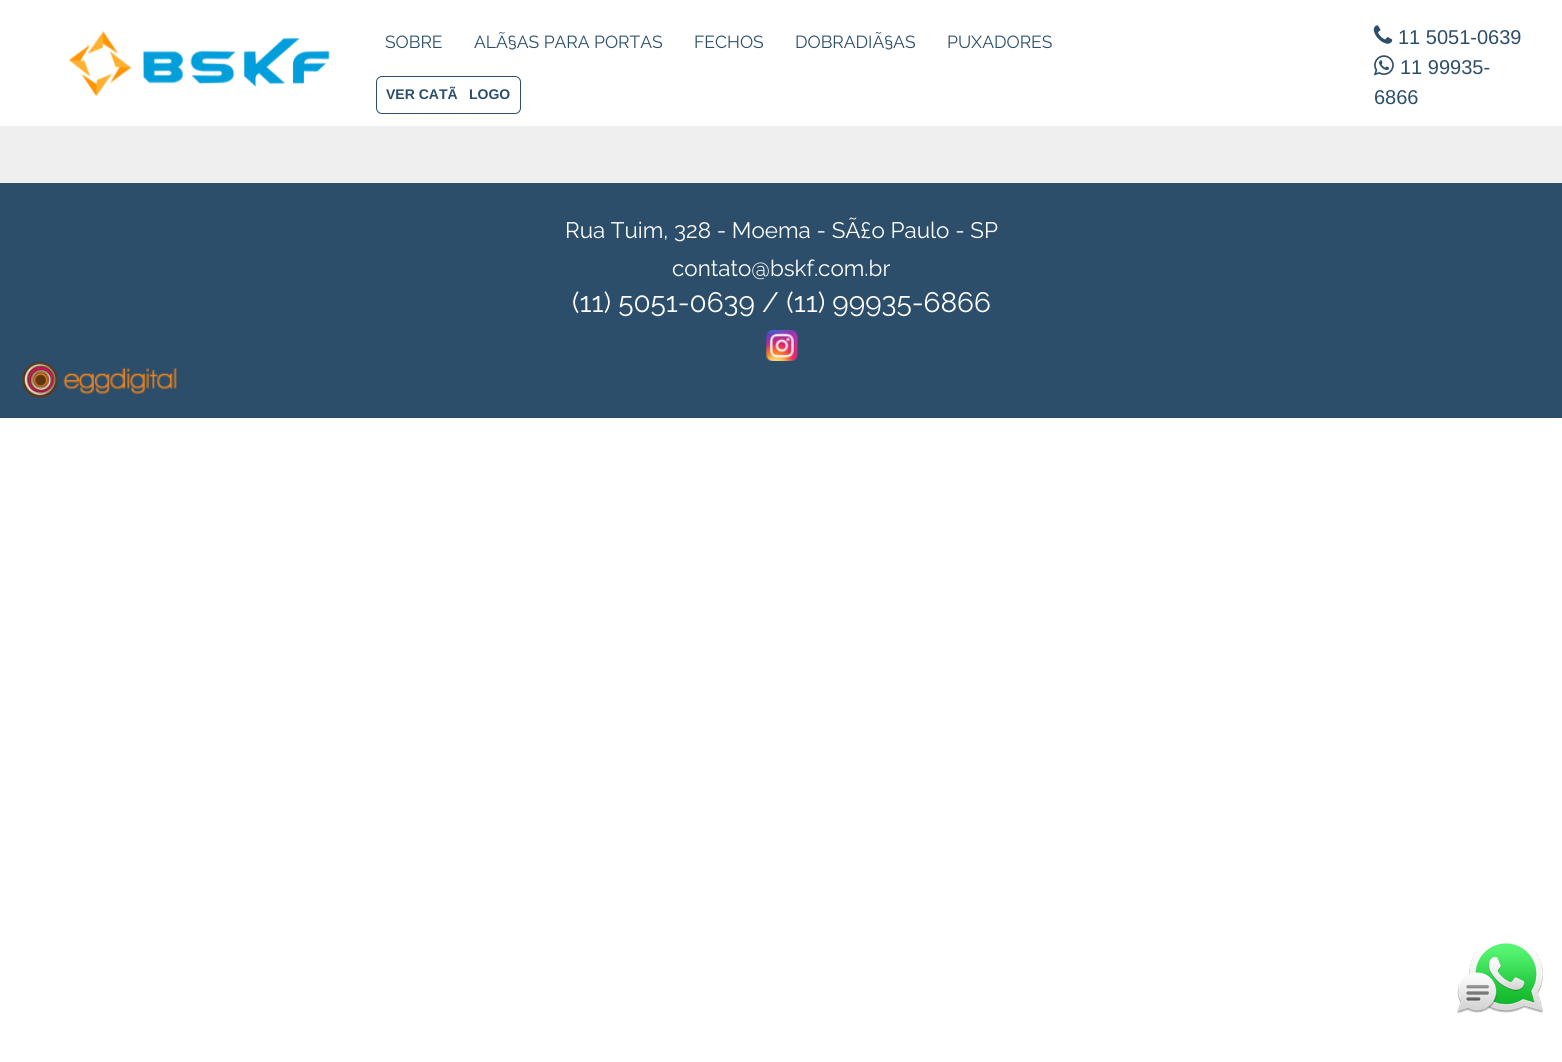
#include <cairo/cairo.h>
#include <math.h>
#include <stddef.h>

typedef struct { double x, y; const char *s; } line_t;
static cairo_t *cr;

static void rgb(unsigned color)
{
	cairo_set_source_rgb(cr, (color >> 16) / 255.0, (color >> 8 & 255) / 255.0, (color & 255) / 255.0);
}

static void rrect(double x, double y, double w, double h, double r)
{
	cairo_new_sub_path(cr);
	cairo_arc(cr, x + w - r, y + h - r, r, 0, M_PI / 2);
	cairo_arc(cr, x + r, y + h - r, r, M_PI / 2, M_PI);
	cairo_arc(cr, x + r, y + r, r, M_PI, 1.5 * M_PI);
	cairo_arc(cr, x + w - r, y + r, r, 1.5 * M_PI, 2 * M_PI);
	cairo_close_path(cr);
}

static void image(const char *path, double x, double y, double w, double h)
{
	cairo_surface_t *image = cairo_image_surface_create_from_png(path);
	cairo_save(cr);
	cairo_set_source_surface(cr, image, x, y);
	cairo_rectangle(cr, x, y, w, h);
	cairo_fill(cr);
	cairo_restore(cr);
	cairo_surface_destroy(image);
}

int main(void) {
	cairo_surface_t *surface = cairo_image_surface_create(CAIRO_FORMAT_RGB24, 1562, 1062);
	cr = cairo_create(surface);
	cairo_font_options_t *options = cairo_font_options_create();
	cairo_font_options_set_hint_metrics(options, CAIRO_HINT_METRICS_OFF);
	cairo_font_options_set_hint_style(options, CAIRO_HINT_STYLE_NONE);
	cairo_set_font_options(cr, options);
	cairo_set_miter_limit(cr, 4);
	rgb(0xffffff);
	cairo_paint(cr);
	rgb(0xefefef);
	cairo_rectangle(cr, 0, 126, 1562, 57);
	cairo_fill(cr);
	image("img/1.png", 69, 31, 261, 66);
	rrect(376.5, 76.5, 144, 37, 5.5);
	rgb(0x2c4e6a);
	cairo_set_line_width(cr, 1);
	cairo_stroke(cr);
	image("img/2.png", 1373, 25, 20, 19);
	image("img/3.png", 1373, 55, 21, 21);
	cairo_rectangle(cr, 0, 183, 1562, 235);
	cairo_fill(cr);
	image("img/4.png", 766, 330, 32, 31);
	image("img/5.png", 22, 361, 155, 37);
	image("img/6.png", 1457, 943, 86, 71);
	cairo_select_font_face(cr, "Raleway", CAIRO_FONT_SLANT_NORMAL, CAIRO_FONT_WEIGHT_NORMAL);
	cairo_set_font_size(cr, 17.5);
	{
		static const line_t items[] = {
			{385, 48, "SOBRE"},
			{474, 48, "ALÃ§AS PARA PORTAS"},
			{694, 48, "FECHOS"},
			{795, 48, "DOBRADIÃ§AS"},
			{947, 48, "PUXADORES"},
		};
		for (size_t i = 0; i < sizeof items / sizeof *items; i++) {
			cairo_move_to(cr, items[i].x, items[i].y);
			cairo_show_text(cr, items[i].s);
		}
	}
	cairo_select_font_face(cr, "Liberation Sans", CAIRO_FONT_SLANT_NORMAL, CAIRO_FONT_WEIGHT_BOLD);
	cairo_set_font_size(cr, 14);
	cairo_move_to(cr, 386, 99);
	cairo_show_text(cr, "VER CATÃ");
	cairo_move_to(cr, 469, 99);
	cairo_show_text(cr, "LOGO");
	cairo_select_font_face(cr, "Liberation Sans", CAIRO_FONT_SLANT_NORMAL, CAIRO_FONT_WEIGHT_NORMAL);
	cairo_set_font_size(cr, 20);
	{
		static const line_t items[] = {
			{1398, 44, "11 5051-0639"},
			{1400, 74, "11 99935-"},
			{1374, 104, "6866"},
		};
		for (size_t i = 0; i < sizeof items / sizeof *items; i++) {
			cairo_move_to(cr, items[i].x, items[i].y);
			cairo_show_text(cr, items[i].s);
		}
	}
	cairo_select_font_face(cr, "Raleway", CAIRO_FONT_SLANT_NORMAL, CAIRO_FONT_WEIGHT_NORMAL);
	cairo_set_font_size(cr, 22.4);
	rgb(0xffffff);
	cairo_move_to(cr, 565, 238);
	cairo_show_text(cr, "Rua Tuim, 328 - Moema - SÃ£o Paulo - SP");
	cairo_move_to(cr, 672, 276);
	cairo_show_text(cr, "contato@bskf.com.br");
	cairo_set_font_size(cr, 28);
	cairo_move_to(cr, 572, 312);
	cairo_show_text(cr, "(11) 5051-0639 / (11) 99935-6866");
	cairo_surface_write_to_png(surface, "page.png");
	cairo_font_options_destroy(options);
	cairo_destroy(cr);
	cairo_surface_destroy(surface);
	return 0;
}
